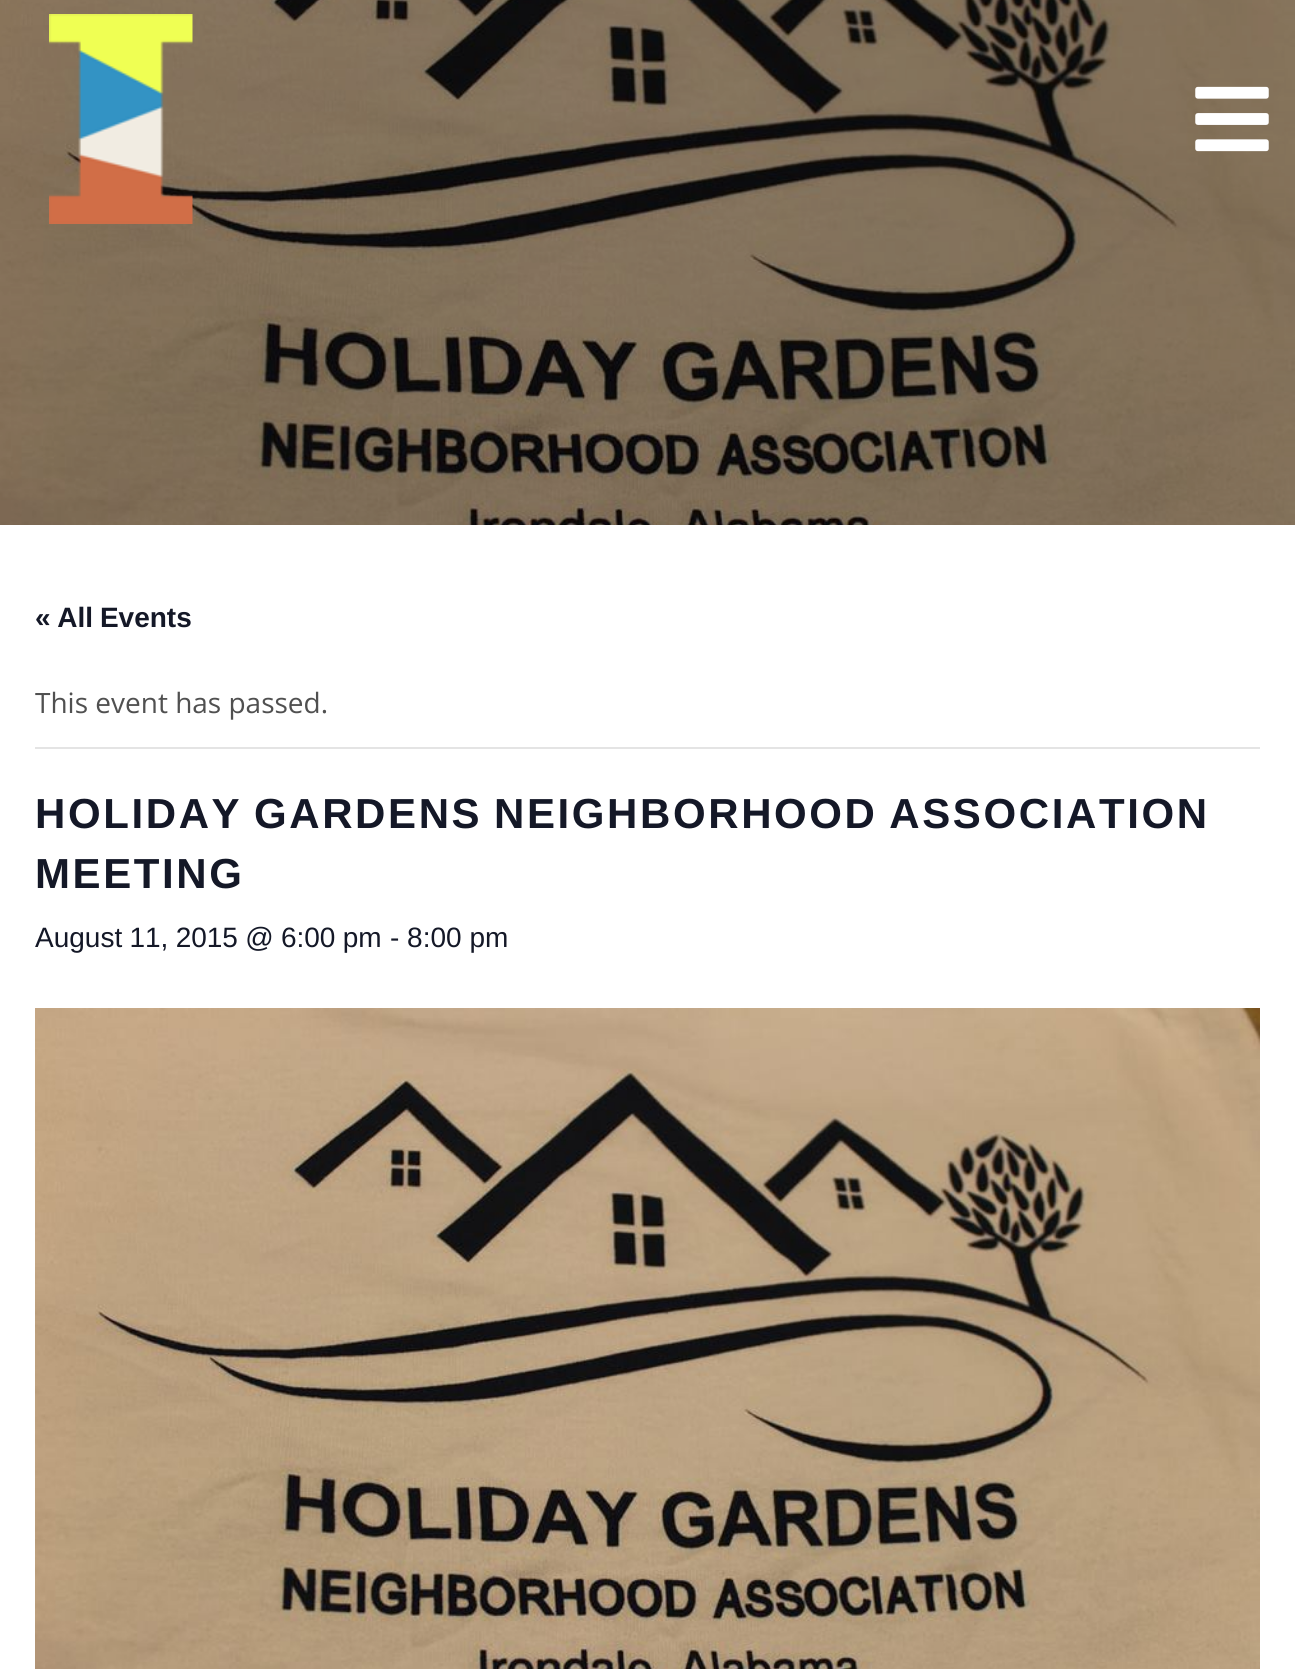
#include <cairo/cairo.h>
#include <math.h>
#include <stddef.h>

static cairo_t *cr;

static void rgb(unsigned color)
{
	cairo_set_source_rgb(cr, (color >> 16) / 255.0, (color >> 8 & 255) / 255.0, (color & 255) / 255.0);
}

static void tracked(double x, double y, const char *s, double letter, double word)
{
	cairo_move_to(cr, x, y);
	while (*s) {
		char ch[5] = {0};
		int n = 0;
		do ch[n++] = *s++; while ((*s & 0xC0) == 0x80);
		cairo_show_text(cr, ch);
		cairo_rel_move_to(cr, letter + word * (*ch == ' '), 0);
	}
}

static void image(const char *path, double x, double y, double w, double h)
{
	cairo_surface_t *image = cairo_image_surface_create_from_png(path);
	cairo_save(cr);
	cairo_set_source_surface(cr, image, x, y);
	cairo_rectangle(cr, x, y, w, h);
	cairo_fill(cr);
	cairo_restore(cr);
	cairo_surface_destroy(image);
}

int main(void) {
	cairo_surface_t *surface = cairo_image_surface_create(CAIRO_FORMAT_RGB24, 1295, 1669);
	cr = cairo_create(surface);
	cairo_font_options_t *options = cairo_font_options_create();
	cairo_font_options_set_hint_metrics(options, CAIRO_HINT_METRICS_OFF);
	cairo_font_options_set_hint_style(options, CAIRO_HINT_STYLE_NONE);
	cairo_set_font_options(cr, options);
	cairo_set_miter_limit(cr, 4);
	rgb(0xffffff);
	cairo_paint(cr);
	image("img/1.png", 0, 0, 1295, 525);
	image("img/2.png", 49, 14, 144, 210);
	image("img/3.png", 1195, 86, 74, 66);
	rgb(0xe4e4e4);
	cairo_rectangle(cr, 35, 747, 1225, 2);
	cairo_fill(cr);
	image("img/4.png", 35, 1008, 1225, 661);
	cairo_select_font_face(cr, "Liberation Sans", CAIRO_FONT_SLANT_NORMAL, CAIRO_FONT_WEIGHT_BOLD);
	cairo_set_font_size(cr, 28);
	rgb(0x141827);
	tracked(35, 627, "« All Events", 0, -1);
	cairo_select_font_face(cr, "Open Sans", CAIRO_FONT_SLANT_NORMAL, CAIRO_FONT_WEIGHT_NORMAL);
	rgb(0x505050);
	cairo_move_to(cr, 35, 713);
	cairo_show_text(cr, "This event has passed.");
	cairo_select_font_face(cr, "Liberation Sans", CAIRO_FONT_SLANT_NORMAL, CAIRO_FONT_WEIGHT_BOLD);
	cairo_set_font_size(cr, 42);
	rgb(0x141827);
	tracked(35, 828, "HOLIDAY GARDENS NEIGHBORHOOD ASSOCIATION", 2.6, -2.5);
	tracked(35, 888, "MEETING", 2.6, 0);
	cairo_select_font_face(cr, "Liberation Sans", CAIRO_FONT_SLANT_NORMAL, CAIRO_FONT_WEIGHT_NORMAL);
	cairo_set_font_size(cr, 28);
	tracked(35, 947, "August 11, 2015 @ 6:00 pm", 0, -0.5);
	cairo_move_to(cr, 390, 947);
	cairo_show_text(cr, "- 8:00 pm");
	cairo_surface_write_to_png(surface, "page.png");
	cairo_font_options_destroy(options);
	cairo_destroy(cr);
	cairo_surface_destroy(surface);
	return 0;
}
